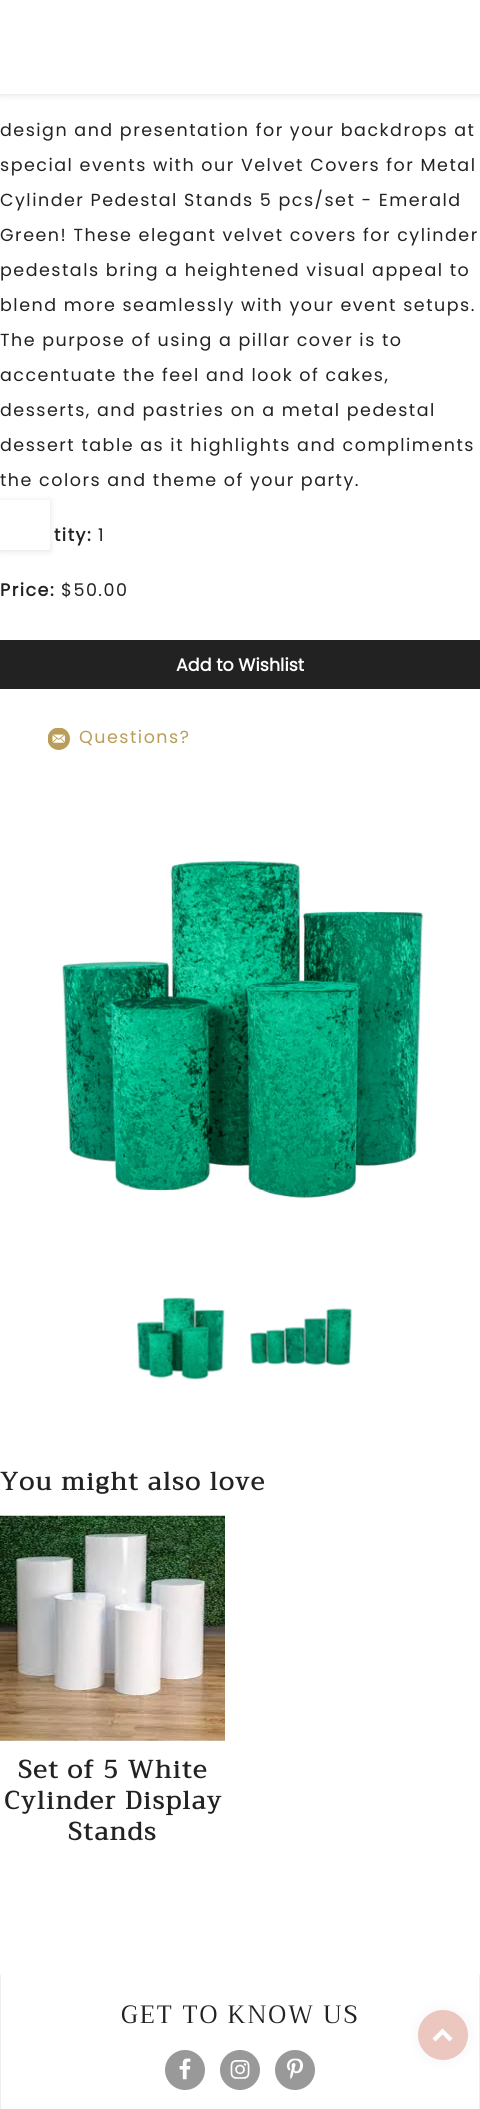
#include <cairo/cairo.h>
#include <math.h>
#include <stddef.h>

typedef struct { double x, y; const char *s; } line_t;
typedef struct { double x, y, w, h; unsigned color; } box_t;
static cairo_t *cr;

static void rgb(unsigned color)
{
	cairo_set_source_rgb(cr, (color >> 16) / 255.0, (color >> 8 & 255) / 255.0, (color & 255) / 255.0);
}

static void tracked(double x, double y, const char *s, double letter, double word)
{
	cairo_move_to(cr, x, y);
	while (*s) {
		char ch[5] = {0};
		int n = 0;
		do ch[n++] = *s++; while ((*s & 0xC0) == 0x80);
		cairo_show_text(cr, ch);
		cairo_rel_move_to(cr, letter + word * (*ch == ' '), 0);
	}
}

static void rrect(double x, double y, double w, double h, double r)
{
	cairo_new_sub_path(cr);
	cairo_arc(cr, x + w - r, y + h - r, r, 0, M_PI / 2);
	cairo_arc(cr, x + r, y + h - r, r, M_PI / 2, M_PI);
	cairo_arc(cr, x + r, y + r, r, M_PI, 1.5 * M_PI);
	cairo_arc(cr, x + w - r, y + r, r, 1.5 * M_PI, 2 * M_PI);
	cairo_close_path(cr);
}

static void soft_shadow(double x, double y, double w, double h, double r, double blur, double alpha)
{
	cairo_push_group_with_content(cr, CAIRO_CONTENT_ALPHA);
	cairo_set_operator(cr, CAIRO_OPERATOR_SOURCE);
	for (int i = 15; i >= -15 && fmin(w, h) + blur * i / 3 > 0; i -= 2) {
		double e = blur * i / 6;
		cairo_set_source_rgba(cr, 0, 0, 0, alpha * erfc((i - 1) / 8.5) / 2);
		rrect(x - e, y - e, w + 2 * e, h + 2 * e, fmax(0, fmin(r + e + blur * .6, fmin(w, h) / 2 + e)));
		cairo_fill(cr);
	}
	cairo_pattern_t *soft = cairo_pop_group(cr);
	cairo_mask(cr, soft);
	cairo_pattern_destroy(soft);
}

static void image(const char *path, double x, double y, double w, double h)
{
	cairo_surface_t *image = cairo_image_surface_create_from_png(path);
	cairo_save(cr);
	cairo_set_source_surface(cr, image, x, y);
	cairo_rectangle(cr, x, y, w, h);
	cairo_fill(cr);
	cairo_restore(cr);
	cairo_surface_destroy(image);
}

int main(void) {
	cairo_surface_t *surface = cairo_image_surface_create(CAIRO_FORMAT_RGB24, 480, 2109);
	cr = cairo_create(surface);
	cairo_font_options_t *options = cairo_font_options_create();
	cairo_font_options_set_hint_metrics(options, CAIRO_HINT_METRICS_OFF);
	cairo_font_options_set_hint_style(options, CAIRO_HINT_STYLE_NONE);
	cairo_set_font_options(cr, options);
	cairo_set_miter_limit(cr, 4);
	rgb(0xffffff);
	cairo_paint(cr);
	rgb(0xbebebe);
	soft_shadow(0, 1, 480, 94, 0, 3, 0.46);
	rgb(0xffffff);
	cairo_rectangle(cr, 0, 0, 480, 94);
	cairo_fill(cr);
	rgb(0x222222);
	cairo_rectangle(cr, 0, 640, 480, 49);
	cairo_fill(cr);
	image("img/1.png", 48, 728, 22, 22);
	image("img/2.png", 61, 860, 363, 339);
	image("img/3.png", 136, 1297, 89, 83);
	image("img/4.png", 250, 1308, 102, 58);
	image("img/5.png", 0, 1515, 225, 226);
	rgb(0xbebebe);
	soft_shadow(0, 501, 50, 50, 0, 3, 0.46);
	{
		static const box_t items[] = {
			{0, 500, 50, 50, 0xffffff},
			{479, 1975, 1, 134, 0xeeeeee},
			{0, 1975, 1, 134, 0xeeeeee},
		};
		for (size_t i = 0; i < sizeof items / sizeof *items; i++) {
			rgb(items[i].color);
			cairo_rectangle(cr, items[i].x, items[i].y, items[i].w, items[i].h);
			cairo_fill(cr);
		}
	}
	rgb(0x999999);
	cairo_arc(cr, 185, 2070, 20, 0, 2 * M_PI);
	cairo_fill(cr);
	image("img/6.png", 179, 2058, 12, 22);
	cairo_arc(cr, 240, 2070, 20, 0, 2 * M_PI);
	cairo_fill(cr);
	image("img/7.png", 230, 2060, 20, 19);
	cairo_arc(cr, 295, 2070, 20, 0, 2 * M_PI);
	cairo_fill(cr);
	image("img/8.png", 287, 2058, 16, 21);
	rgb(0x000000);
	soft_shadow(418, 2010, 50, 50, 25, 6, 0.05);
	rgb(0xecc7c0);
	cairo_arc(cr, 443, 2035, 25, 0, 2 * M_PI);
	cairo_fill(cr);
	rgb(0xffffff);
	cairo_new_path(cr);
	cairo_move_to(cr, 442.5, 2028.5);
	cairo_line_to(cr, 452.5, 2038.5);
	cairo_line_to(cr, 449.5, 2041.5);
	cairo_line_to(cr, 442.5, 2034.5);
	cairo_line_to(cr, 435.5, 2041.5);
	cairo_line_to(cr, 432.5, 2038.5);
	cairo_close_path(cr);
	cairo_fill(cr);
	cairo_select_font_face(cr, "Poppins", CAIRO_FONT_SLANT_NORMAL, CAIRO_FONT_WEIGHT_NORMAL);
	cairo_set_font_size(cr, 17.5);
	rgb(0x222222);
	{
		static const line_t items[] = {
			{0, 136, "design and presentation for your backdrops at"},
			{0, 171, "special events with our Velvet Covers for Metal"},
			{0, 206, "Cylinder Pedestal Stands 5 pcs/set - Emerald"},
			{0, 241, "Green! These elegant velvet covers for cylinder"},
			{0, 276, "pedestals bring a heightened visual appeal to"},
			{0, 311, "blend more seamlessly with your event setups."},
			{0, 346, "The purpose of using a pillar cover is to"},
			{0, 381, "accentuate the feel and look of cakes,"},
			{0, 416, "desserts, and pastries on a metal pedestal"},
			{0, 451, "dessert table as it highlights and compliments"},
			{0, 486, "the colors and theme of your party."},
		};
		for (size_t i = 0; i < sizeof items / sizeof *items; i++) {
			tracked(items[i].x, items[i].y, items[i].s, 1.5, 0);
		}
	}
	cairo_select_font_face(cr, "Poppins", CAIRO_FONT_SLANT_NORMAL, CAIRO_FONT_WEIGHT_BOLD);
	tracked(54, 541, "tity:", 1.5, 0);
	cairo_select_font_face(cr, "Poppins", CAIRO_FONT_SLANT_NORMAL, CAIRO_FONT_WEIGHT_NORMAL);
	tracked(98, 541, "1", 1.5, 0);
	cairo_select_font_face(cr, "Poppins", CAIRO_FONT_SLANT_NORMAL, CAIRO_FONT_WEIGHT_BOLD);
	tracked(0, 596, "Price:", 1.5, 0);
	cairo_select_font_face(cr, "Poppins", CAIRO_FONT_SLANT_NORMAL, CAIRO_FONT_WEIGHT_NORMAL);
	tracked(61, 596, "$50.00", 1.5, 0);
	cairo_select_font_face(cr, "Poppins", CAIRO_FONT_SLANT_NORMAL, CAIRO_FONT_WEIGHT_BOLD);
	rgb(0xffffff);
	cairo_move_to(cr, 176, 671);
	cairo_show_text(cr, "Add to Wishlist");
	cairo_select_font_face(cr, "Poppins", CAIRO_FONT_SLANT_NORMAL, CAIRO_FONT_WEIGHT_NORMAL);
	rgb(0xb99d58);
	tracked(79, 743, "Questions?", 1.5, 0);
	cairo_select_font_face(cr, "Trirong", CAIRO_FONT_SLANT_NORMAL, CAIRO_FONT_WEIGHT_BOLD);
	cairo_set_font_size(cr, 25);
	rgb(0x222222);
	{
		static const line_t items[] = {
			{0, 1490, "You might also love"},
			{18, 1778, "Set of 5 White"},
			{4, 1809, "Cylinder Display"},
			{68, 1840, "Stands"},
		};
		for (size_t i = 0; i < sizeof items / sizeof *items; i++) {
			tracked(items[i].x, items[i].y, items[i].s, 1.6, 0);
		}
	}
	cairo_select_font_face(cr, "Trirong", CAIRO_FONT_SLANT_NORMAL, CAIRO_FONT_WEIGHT_NORMAL);
	tracked(121, 2023, "GET TO KNOW US", 1.6, 0);
	cairo_surface_write_to_png(surface, "page.png");
	cairo_font_options_destroy(options);
	cairo_destroy(cr);
	cairo_surface_destroy(surface);
	return 0;
}
